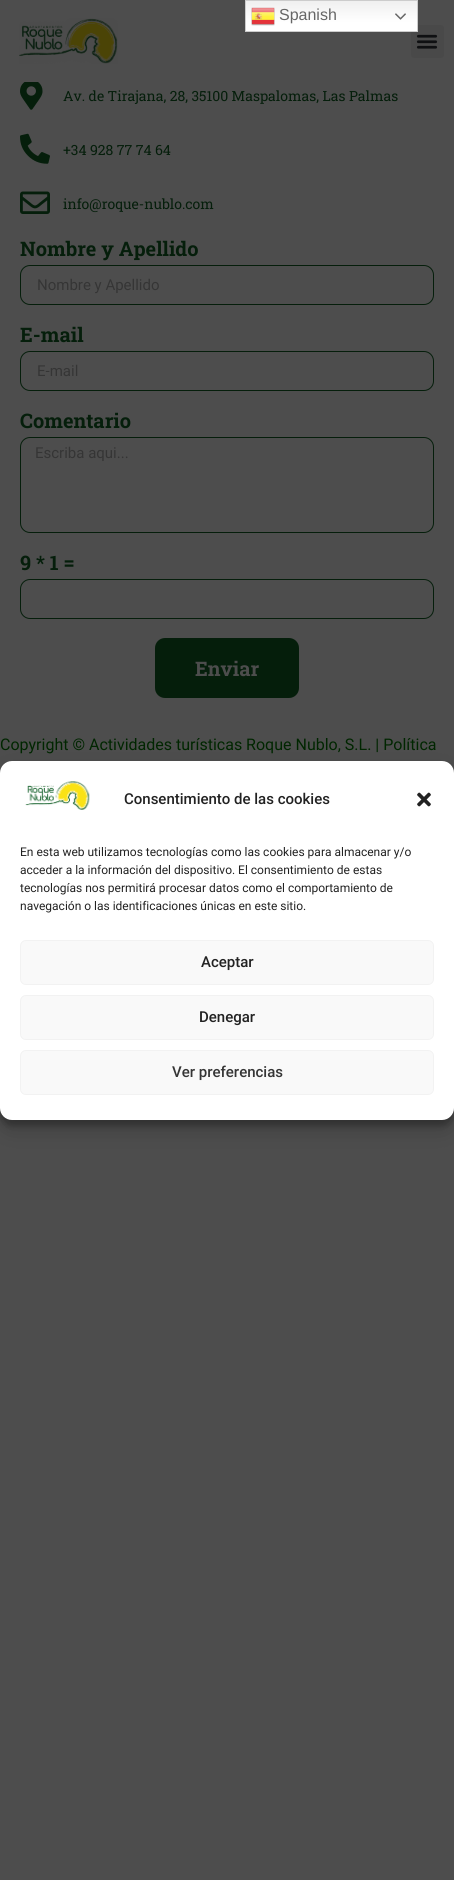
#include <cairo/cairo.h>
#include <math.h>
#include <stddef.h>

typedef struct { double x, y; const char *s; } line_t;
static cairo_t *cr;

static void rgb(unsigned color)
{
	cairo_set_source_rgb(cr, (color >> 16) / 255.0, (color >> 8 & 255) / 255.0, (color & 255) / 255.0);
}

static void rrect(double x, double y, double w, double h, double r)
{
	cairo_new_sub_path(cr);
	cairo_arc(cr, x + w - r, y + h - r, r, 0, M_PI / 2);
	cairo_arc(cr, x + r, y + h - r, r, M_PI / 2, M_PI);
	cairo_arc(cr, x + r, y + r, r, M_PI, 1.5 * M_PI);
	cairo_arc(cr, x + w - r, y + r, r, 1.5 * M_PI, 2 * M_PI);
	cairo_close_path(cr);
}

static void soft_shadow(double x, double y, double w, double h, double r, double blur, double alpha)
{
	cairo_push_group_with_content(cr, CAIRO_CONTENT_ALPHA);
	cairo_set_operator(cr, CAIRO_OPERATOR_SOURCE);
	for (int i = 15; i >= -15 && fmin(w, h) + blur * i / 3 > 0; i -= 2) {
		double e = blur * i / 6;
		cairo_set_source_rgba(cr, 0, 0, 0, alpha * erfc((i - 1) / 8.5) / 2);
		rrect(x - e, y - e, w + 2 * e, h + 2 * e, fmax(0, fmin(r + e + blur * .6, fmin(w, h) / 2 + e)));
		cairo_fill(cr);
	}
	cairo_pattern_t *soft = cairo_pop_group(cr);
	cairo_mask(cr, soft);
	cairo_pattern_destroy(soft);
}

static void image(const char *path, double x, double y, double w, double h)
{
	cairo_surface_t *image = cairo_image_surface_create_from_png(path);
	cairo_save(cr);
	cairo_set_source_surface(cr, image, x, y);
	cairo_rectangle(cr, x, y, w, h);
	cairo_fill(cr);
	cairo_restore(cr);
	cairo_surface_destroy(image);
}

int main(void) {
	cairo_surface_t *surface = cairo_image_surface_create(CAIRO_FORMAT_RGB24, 454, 1880);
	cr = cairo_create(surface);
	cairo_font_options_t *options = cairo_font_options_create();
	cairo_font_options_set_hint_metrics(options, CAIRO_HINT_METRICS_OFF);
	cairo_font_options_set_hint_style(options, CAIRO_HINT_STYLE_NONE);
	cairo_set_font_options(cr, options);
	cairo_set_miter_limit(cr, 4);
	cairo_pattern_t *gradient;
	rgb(0x4d4d4d);
	cairo_paint(cr);
	rgb(0x494949);
	rrect(411, 25, 33, 33, 3);
	cairo_fill(cr);
	gradient = cairo_pattern_create_linear(332, 0, 332, 32);
	cairo_pattern_add_color_stop_rgba(gradient, 0, 0.937, 0.937, 0.937, 1);
	cairo_pattern_add_color_stop_rgba(gradient, 0.7, 1, 1, 1, 1);
	cairo_set_source(cr, gradient);
	cairo_pattern_destroy(gradient);
	cairo_rectangle(cr, 246, 1, 171, 30);
	cairo_fill(cr);
	cairo_rectangle(cr, 245.5, 0.5, 172, 31);
	rgb(0xcccccc);
	cairo_set_line_width(cr, 1);
	cairo_stroke(cr);
	image("img/1.png", 251, 7, 24, 19);
	image("img/2.png", 395, 13, 11, 7);
	image("img/3.png", 19, 18, 99, 46);
	image("img/4.png", 416, 34, 22, 15);
	image("img/5.png", 20, 82, 23, 28);
	image("img/6.png", 20, 133, 30, 31);
	image("img/7.png", 20, 191, 30, 23);
	rrect(20.5, 265.5, 413, 39, 9.5);
	rgb(0x051e0b);
	cairo_stroke(cr);
	rrect(20.5, 351.5, 413, 39, 9.5);
	cairo_stroke(cr);
	rrect(20.5, 437.5, 413, 95, 9.5);
	cairo_stroke(cr);
	rrect(20.5, 579.5, 413, 39, 9.5);
	cairo_stroke(cr);
	rrect(155, 638, 144, 60, 10);
	cairo_fill(cr);
	rgb(0x000000);
	soft_shadow(0, 767, 454, 359, 12, 3, 0.23);
	soft_shadow(0, 771, 454, 359, 12, 10, 0.19);
	rgb(0xffffff);
	rrect(0, 761, 454, 359, 12);
	cairo_fill(cr);
	image("img/8.png", 25, 781, 65, 29);
	image("img/9.png", 417, 792, 14, 15);
	rgb(0xf9f9f9);
	rrect(20.5, 940.5, 413, 44, 5.5);
	cairo_fill_preserve(cr);
	rgb(0xf2f2f2);
	cairo_stroke(cr);
	rgb(0xf9f9f9);
	rrect(20.5, 995.5, 413, 44, 5.5);
	cairo_fill_preserve(cr);
	rgb(0xf2f2f2);
	cairo_stroke(cr);
	rgb(0xf9f9f9);
	rrect(20.5, 1050.5, 413, 44, 5.5);
	cairo_fill_preserve(cr);
	rgb(0xf2f2f2);
	cairo_stroke(cr);
	cairo_select_font_face(cr, "Liberation Sans", CAIRO_FONT_SLANT_NORMAL, CAIRO_FONT_WEIGHT_NORMAL);
	cairo_set_font_size(cr, 16);
	rgb(0x666666);
	cairo_move_to(cr, 279, 20);
	cairo_show_text(cr, "Spanish");
	cairo_select_font_face(cr, "Roboto Slab", CAIRO_FONT_SLANT_NORMAL, CAIRO_FONT_WEIGHT_NORMAL);
	cairo_set_font_size(cr, 14);
	rgb(0x051e0b);
	{
		static const line_t items[] = {
			{63, 101, "Av. de Tirajana, 28, 35100 Maspalomas, Las Palmas"},
			{63, 155, "+34 928 77 74 64"},
			{63, 209, "info@roque-nublo.com"},
		};
		for (size_t i = 0; i < sizeof items / sizeof *items; i++) {
			cairo_move_to(cr, items[i].x, items[i].y);
			cairo_show_text(cr, items[i].s);
		}
	}
	cairo_select_font_face(cr, "Roboto Slab", CAIRO_FONT_SLANT_NORMAL, CAIRO_FONT_WEIGHT_BOLD);
	cairo_set_font_size(cr, 20);
	cairo_move_to(cr, 20, 256);
	cairo_show_text(cr, "Nombre y Apellido");
	cairo_select_font_face(cr, "Roboto", CAIRO_FONT_SLANT_NORMAL, CAIRO_FONT_WEIGHT_NORMAL);
	cairo_set_font_size(cr, 15);
	rgb(0x353535);
	cairo_move_to(cr, 37, 290);
	cairo_show_text(cr, "Nombre y Apellido");
	cairo_select_font_face(cr, "Roboto Slab", CAIRO_FONT_SLANT_NORMAL, CAIRO_FONT_WEIGHT_BOLD);
	cairo_set_font_size(cr, 20);
	rgb(0x051e0b);
	cairo_move_to(cr, 20, 342);
	cairo_show_text(cr, "E-mail");
	cairo_select_font_face(cr, "Roboto", CAIRO_FONT_SLANT_NORMAL, CAIRO_FONT_WEIGHT_NORMAL);
	cairo_set_font_size(cr, 15);
	rgb(0x353535);
	cairo_move_to(cr, 37, 376);
	cairo_show_text(cr, "E-mail");
	cairo_select_font_face(cr, "Roboto Slab", CAIRO_FONT_SLANT_NORMAL, CAIRO_FONT_WEIGHT_BOLD);
	cairo_set_font_size(cr, 20);
	rgb(0x051e0b);
	cairo_move_to(cr, 20, 428);
	cairo_show_text(cr, "Comentario");
	cairo_select_font_face(cr, "Roboto", CAIRO_FONT_SLANT_NORMAL, CAIRO_FONT_WEIGHT_NORMAL);
	cairo_set_font_size(cr, 15);
	rgb(0x353535);
	cairo_move_to(cr, 35, 458);
	cairo_show_text(cr, "Escriba aqui...");
	cairo_select_font_face(cr, "Roboto Slab", CAIRO_FONT_SLANT_NORMAL, CAIRO_FONT_WEIGHT_BOLD);
	cairo_set_font_size(cr, 20);
	rgb(0x051e0b);
	cairo_move_to(cr, 20, 570);
	cairo_show_text(cr, "9 * 1 =");
	rgb(0x4d4d4d);
	cairo_move_to(cr, 195, 676);
	cairo_show_text(cr, "Enviar");
	cairo_select_font_face(cr, "Roboto", CAIRO_FONT_SLANT_NORMAL, CAIRO_FONT_WEIGHT_NORMAL);
	cairo_set_font_size(cr, 16);
	rgb(0x002600);
	cairo_move_to(cr, 0, 750);
	cairo_show_text(cr, "Copyright © Actividades turísticas Roque Nublo, S.L. | Política");
	cairo_select_font_face(cr, "Roboto Medium", CAIRO_FONT_SLANT_NORMAL, CAIRO_FONT_WEIGHT_NORMAL);
	cairo_set_font_size(cr, 15);
	rgb(0x222222);
	cairo_move_to(cr, 124, 804);
	cairo_show_text(cr, "Consentimiento de las cookies");
	cairo_select_font_face(cr, "Roboto", CAIRO_FONT_SLANT_NORMAL, CAIRO_FONT_WEIGHT_NORMAL);
	cairo_set_font_size(cr, 12);
	{
		static const line_t items[] = {
			{20, 856, "En esta web utilizamos tecnologías como las cookies para almacenar y/o"},
			{20, 874, "acceder a la información del dispositivo. El consentimiento de estas"},
			{20, 892, "tecnologías nos permitirá procesar datos como el comportamiento de"},
			{20, 910, "navegación o las identificaciones únicas en este sitio."},
		};
		for (size_t i = 0; i < sizeof items / sizeof *items; i++) {
			cairo_move_to(cr, items[i].x, items[i].y);
			cairo_show_text(cr, items[i].s);
		}
	}
	cairo_select_font_face(cr, "Roboto Medium", CAIRO_FONT_SLANT_NORMAL, CAIRO_FONT_WEIGHT_NORMAL);
	cairo_set_font_size(cr, 15);
	cairo_move_to(cr, 201, 967);
	cairo_show_text(cr, "Aceptar");
	cairo_move_to(cr, 199, 1022);
	cairo_show_text(cr, "Denegar");
	rgb(0x353535);
	cairo_move_to(cr, 172, 1077);
	cairo_show_text(cr, "Ver preferencias");
	cairo_surface_write_to_png(surface, "page.png");
	cairo_font_options_destroy(options);
	cairo_destroy(cr);
	cairo_surface_destroy(surface);
	return 0;
}
